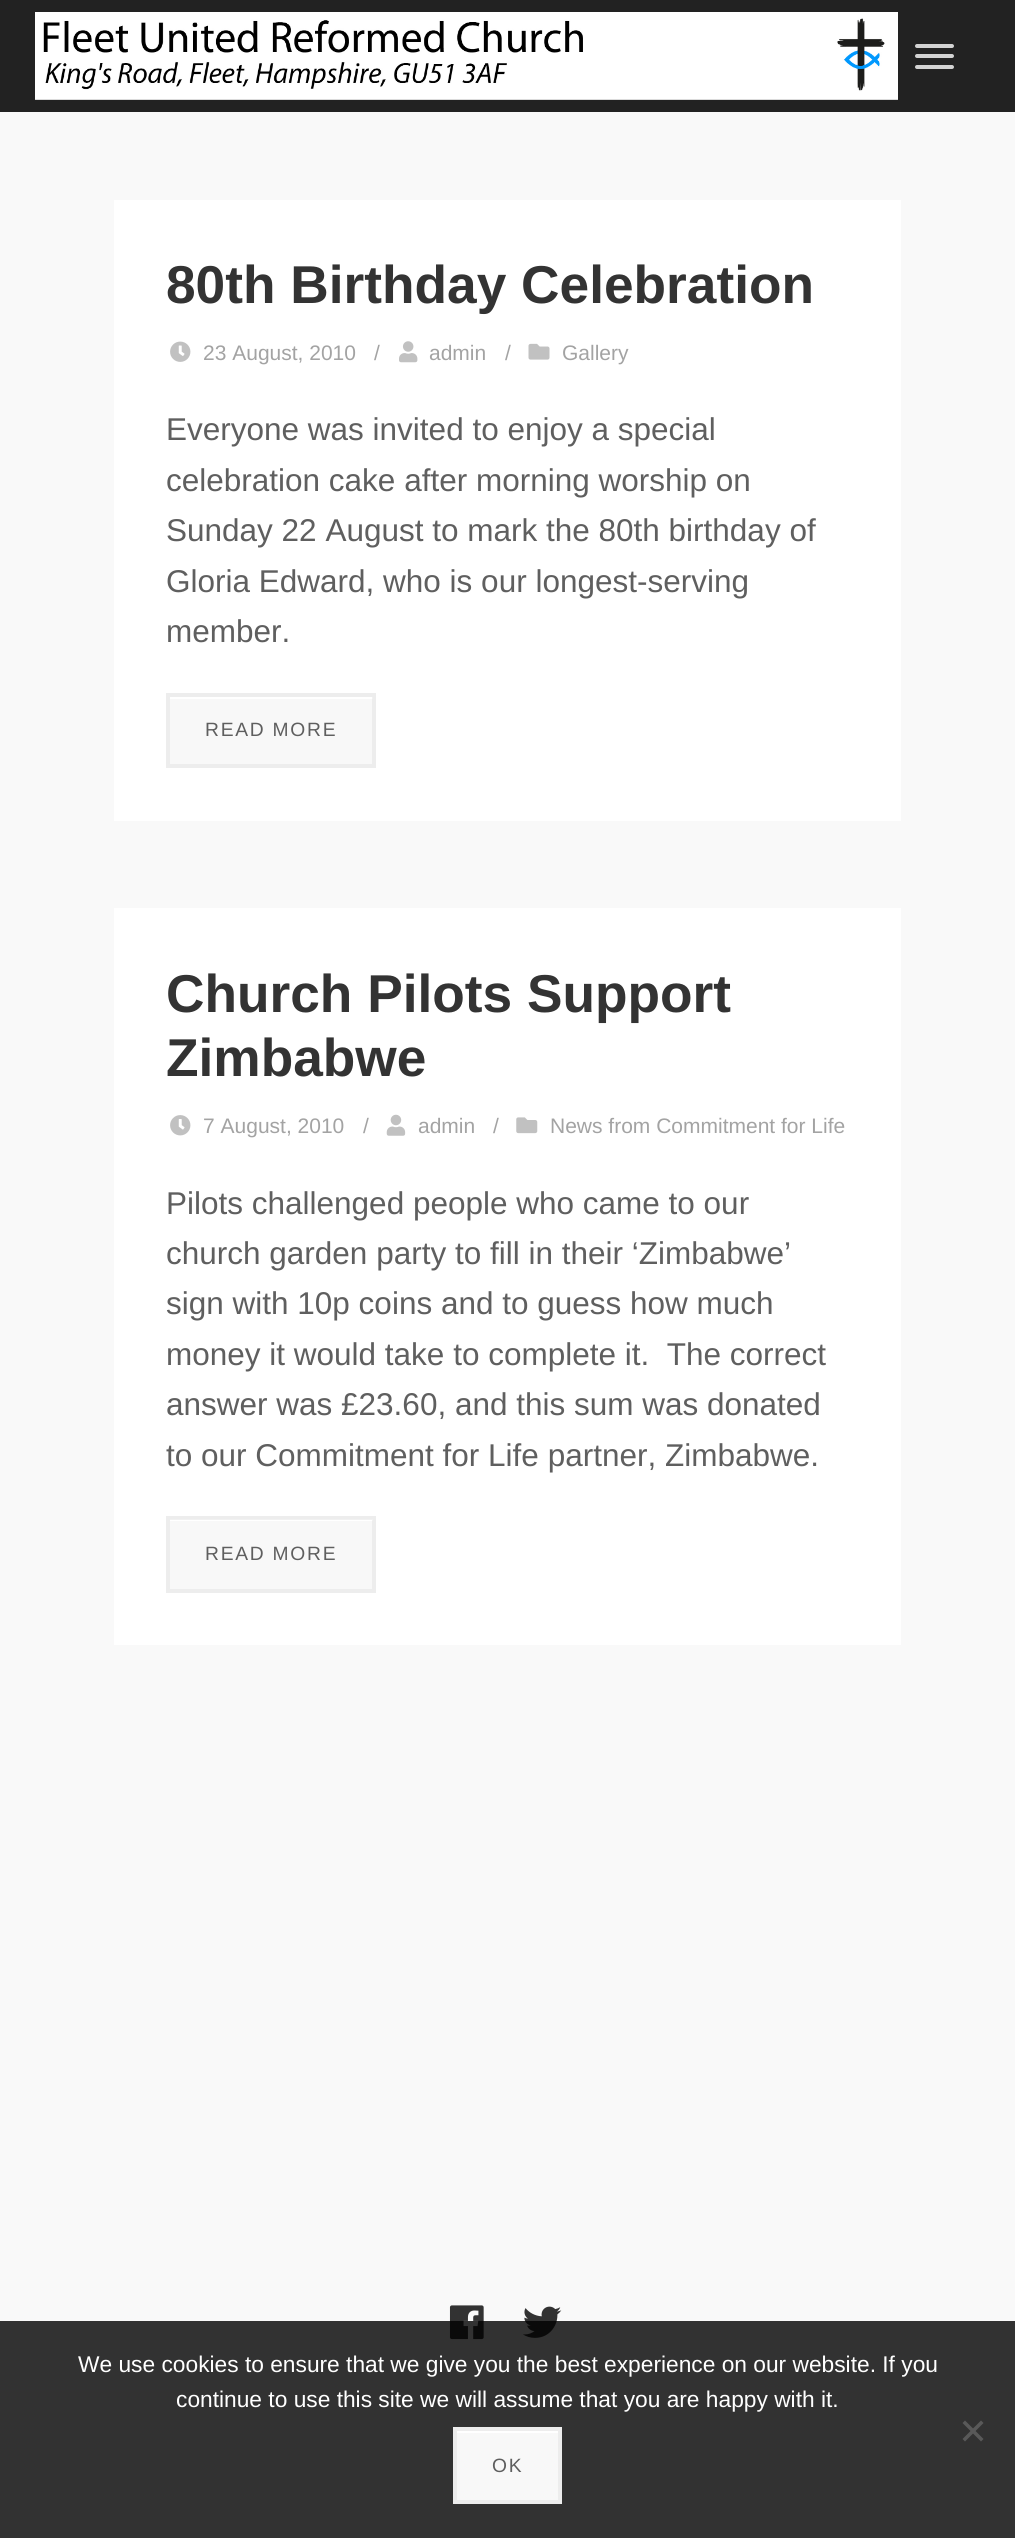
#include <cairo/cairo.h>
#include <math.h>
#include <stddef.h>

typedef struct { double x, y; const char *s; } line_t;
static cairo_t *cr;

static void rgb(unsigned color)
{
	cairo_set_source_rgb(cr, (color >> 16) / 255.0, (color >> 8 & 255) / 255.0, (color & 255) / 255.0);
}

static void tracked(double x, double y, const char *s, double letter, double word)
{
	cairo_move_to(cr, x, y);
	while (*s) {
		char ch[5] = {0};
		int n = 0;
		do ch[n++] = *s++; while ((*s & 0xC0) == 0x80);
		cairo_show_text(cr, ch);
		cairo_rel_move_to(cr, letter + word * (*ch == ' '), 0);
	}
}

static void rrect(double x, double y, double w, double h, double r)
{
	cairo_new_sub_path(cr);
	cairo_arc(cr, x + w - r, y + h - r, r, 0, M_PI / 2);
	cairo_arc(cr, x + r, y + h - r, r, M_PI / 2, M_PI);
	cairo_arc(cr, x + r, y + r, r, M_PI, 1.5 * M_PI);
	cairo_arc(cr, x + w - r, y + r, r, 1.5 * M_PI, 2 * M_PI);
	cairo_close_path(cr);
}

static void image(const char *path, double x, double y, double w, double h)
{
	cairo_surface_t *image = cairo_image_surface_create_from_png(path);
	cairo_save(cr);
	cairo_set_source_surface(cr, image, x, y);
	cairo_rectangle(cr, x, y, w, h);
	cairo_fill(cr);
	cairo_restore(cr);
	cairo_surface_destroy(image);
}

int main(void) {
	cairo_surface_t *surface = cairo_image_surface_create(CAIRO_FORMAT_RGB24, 1015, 2538);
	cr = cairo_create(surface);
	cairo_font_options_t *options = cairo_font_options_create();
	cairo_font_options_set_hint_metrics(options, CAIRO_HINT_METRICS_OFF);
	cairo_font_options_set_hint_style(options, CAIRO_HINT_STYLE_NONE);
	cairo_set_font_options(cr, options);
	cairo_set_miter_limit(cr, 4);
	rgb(0xf9f9f9);
	cairo_paint(cr);
	rgb(0x222222);
	cairo_rectangle(cr, 0, 0, 1015, 112);
	cairo_fill(cr);
	image("img/1.png", 35, 12, 863, 88);
	rgb(0xd3d3d3);
	rrect(915, 44, 39, 4, 2);
	cairo_fill(cr);
	rrect(915, 54, 39, 4, 2);
	cairo_fill(cr);
	rrect(915, 65, 39, 4, 2);
	cairo_fill(cr);
	rgb(0xffffff);
	cairo_rectangle(cr, 114, 200, 787, 621);
	cairo_fill(cr);
	image("img/2.png", 170, 341, 21, 21);
	image("img/3.png", 399, 341, 19, 22);
	image("img/4.png", 528, 343, 22, 17);
	rgb(0xf8f8f8);
	cairo_rectangle(cr, 166, 693, 210, 75);
	cairo_fill(cr);
	rgb(0xffffff);
	cairo_rectangle(cr, 170, 697, 203, 2);
	cairo_fill(cr);
	cairo_rectangle(cr, 168, 695, 206, 71);
	cairo_set_source_rgba(cr, 0.863, 0.863, 0.863, 0.4);
	cairo_set_line_width(cr, 4);
	cairo_stroke(cr);
	rgb(0xffffff);
	cairo_rectangle(cr, 114, 908, 787, 737);
	cairo_fill(cr);
	image("img/5.png", 170, 1115, 21, 21);
	image("img/6.png", 386, 1114, 20, 22);
	image("img/7.png", 516, 1117, 22, 17);
	rgb(0xf8f8f8);
	cairo_rectangle(cr, 166, 1516, 210, 77);
	cairo_fill(cr);
	rgb(0xffffff);
	cairo_rectangle(cr, 170, 1519, 203, 2);
	cairo_fill(cr);
	cairo_rectangle(cr, 168, 1518, 206, 73);
	cairo_set_source_rgba(cr, 0.863, 0.863, 0.863, 0.4);
	cairo_stroke(cr);
	image("img/8.png", 449, 2305, 35, 35);
	image("img/9.png", 523, 2306, 39, 32);
	cairo_set_source_rgba(cr, 0, 0, 0, 0.8);
	cairo_rectangle(cr, 0, 2321, 1015, 217);
	cairo_fill(cr);
	rgb(0x595959);
	cairo_new_path(cr);
	cairo_move_to(cr, 981, 2420.5);
	cairo_line_to(cr, 983.5, 2423);
	cairo_line_to(cr, 965, 2441.5);
	cairo_line_to(cr, 962.5, 2439);
	cairo_close_path(cr);
	cairo_fill(cr);
	cairo_new_path(cr);
	cairo_move_to(cr, 962.5, 2423);
	cairo_line_to(cr, 965, 2420.5);
	cairo_line_to(cr, 983.5, 2439);
	cairo_line_to(cr, 981, 2441.5);
	cairo_close_path(cr);
	cairo_fill(cr);
	rgb(0xf8f8f8);
	cairo_rectangle(cr, 457, 2433, 101, 67);
	cairo_fill(cr);
	rgb(0xffffff);
	cairo_rectangle(cr, 457, 2431, 101, 2);
	cairo_fill(cr);
	cairo_rectangle(cr, 455, 2429, 105, 73);
	rgb(0xededed);
	cairo_stroke(cr);
	cairo_select_font_face(cr, "Liberation Sans", CAIRO_FONT_SLANT_NORMAL, CAIRO_FONT_WEIGHT_BOLD);
	cairo_set_font_size(cr, 53.25);
	rgb(0x333333);
	cairo_move_to(cr, 166, 303);
	cairo_show_text(cr, "80th Birthday Celebration");
	cairo_select_font_face(cr, "Liberation Sans", CAIRO_FONT_SLANT_NORMAL, CAIRO_FONT_WEIGHT_NORMAL);
	cairo_set_font_size(cr, 21);
	rgb(0xa3a3a3);
	{
		static const line_t items[] = {
			{203, 360, "23 August, 2010"},
			{374, 360, "/"},
			{429, 360, "admin"},
			{505, 360, "/"},
			{562, 360, "Gallery"},
		};
		for (size_t i = 0; i < sizeof items / sizeof *items; i++) {
			cairo_move_to(cr, items[i].x, items[i].y);
			cairo_show_text(cr, items[i].s);
		}
	}
	cairo_set_font_size(cr, 31.5);
	rgb(0x5f5f5f);
	{
		static const line_t items[] = {
			{166, 440, "Everyone was invited to enjoy a special"},
			{166, 491, "celebration cake after morning worship on"},
			{166, 541, "Sunday 22 August to mark the 80th birthday of"},
			{166, 592, "Gloria Edward, who is our longest-serving"},
			{166, 642, "member."},
		};
		for (size_t i = 0; i < sizeof items / sizeof *items; i++) {
			cairo_move_to(cr, items[i].x, items[i].y);
			cairo_show_text(cr, items[i].s);
		}
	}
	cairo_set_font_size(cr, 19.25);
	tracked(205, 736, "READ MORE", 1.75, 0);
	cairo_select_font_face(cr, "Liberation Sans", CAIRO_FONT_SLANT_NORMAL, CAIRO_FONT_WEIGHT_BOLD);
	cairo_set_font_size(cr, 53.25);
	rgb(0x333333);
	cairo_move_to(cr, 166, 1012);
	cairo_show_text(cr, "Church Pilots Support");
	cairo_move_to(cr, 166, 1076);
	cairo_show_text(cr, "Zimbabwe");
	cairo_select_font_face(cr, "Liberation Sans", CAIRO_FONT_SLANT_NORMAL, CAIRO_FONT_WEIGHT_NORMAL);
	cairo_set_font_size(cr, 21);
	rgb(0xa3a3a3);
	{
		static const line_t items[] = {
			{203, 1133, "7 August, 2010"},
			{363, 1133, "/"},
			{418, 1133, "admin"},
			{493, 1133, "/"},
			{550, 1133, "News from Commitment for Life"},
		};
		for (size_t i = 0; i < sizeof items / sizeof *items; i++) {
			cairo_move_to(cr, items[i].x, items[i].y);
			cairo_show_text(cr, items[i].s);
		}
	}
	cairo_set_font_size(cr, 31.5);
	rgb(0x5f5f5f);
	{
		static const line_t items[] = {
			{166, 1214, "Pilots challenged people who came to our"},
			{166, 1264, "church garden party to fill in their ‘Zimbabwe’"},
			{166, 1314, "sign with 10p coins and to guess how much"},
			{166, 1365, "money it would take to complete it.  The correct"},
			{166, 1415, "answer was £23.60, and this sum was donated"},
			{166, 1466, "to our Commitment for Life partner, Zimbabwe."},
		};
		for (size_t i = 0; i < sizeof items / sizeof *items; i++) {
			cairo_move_to(cr, items[i].x, items[i].y);
			cairo_show_text(cr, items[i].s);
		}
	}
	cairo_set_font_size(cr, 19.25);
	tracked(205, 1560, "READ MORE", 1.75, 0);
	cairo_set_font_size(cr, 22.75);
	rgb(0xffffff);
	cairo_move_to(cr, 78, 2372);
	cairo_show_text(cr, "We use cookies to ensure that we give you the best experience on our website. If you");
	cairo_move_to(cr, 176, 2407);
	cairo_show_text(cr, "continue to use this site we will assume that you are happy with it.");
	cairo_set_font_size(cr, 19.25);
	rgb(0x5f5f5f);
	tracked(492, 2472, "OK", 1.75, 0);
	cairo_surface_write_to_png(surface, "page.png");
	cairo_font_options_destroy(options);
	cairo_destroy(cr);
	cairo_surface_destroy(surface);
	return 0;
}
